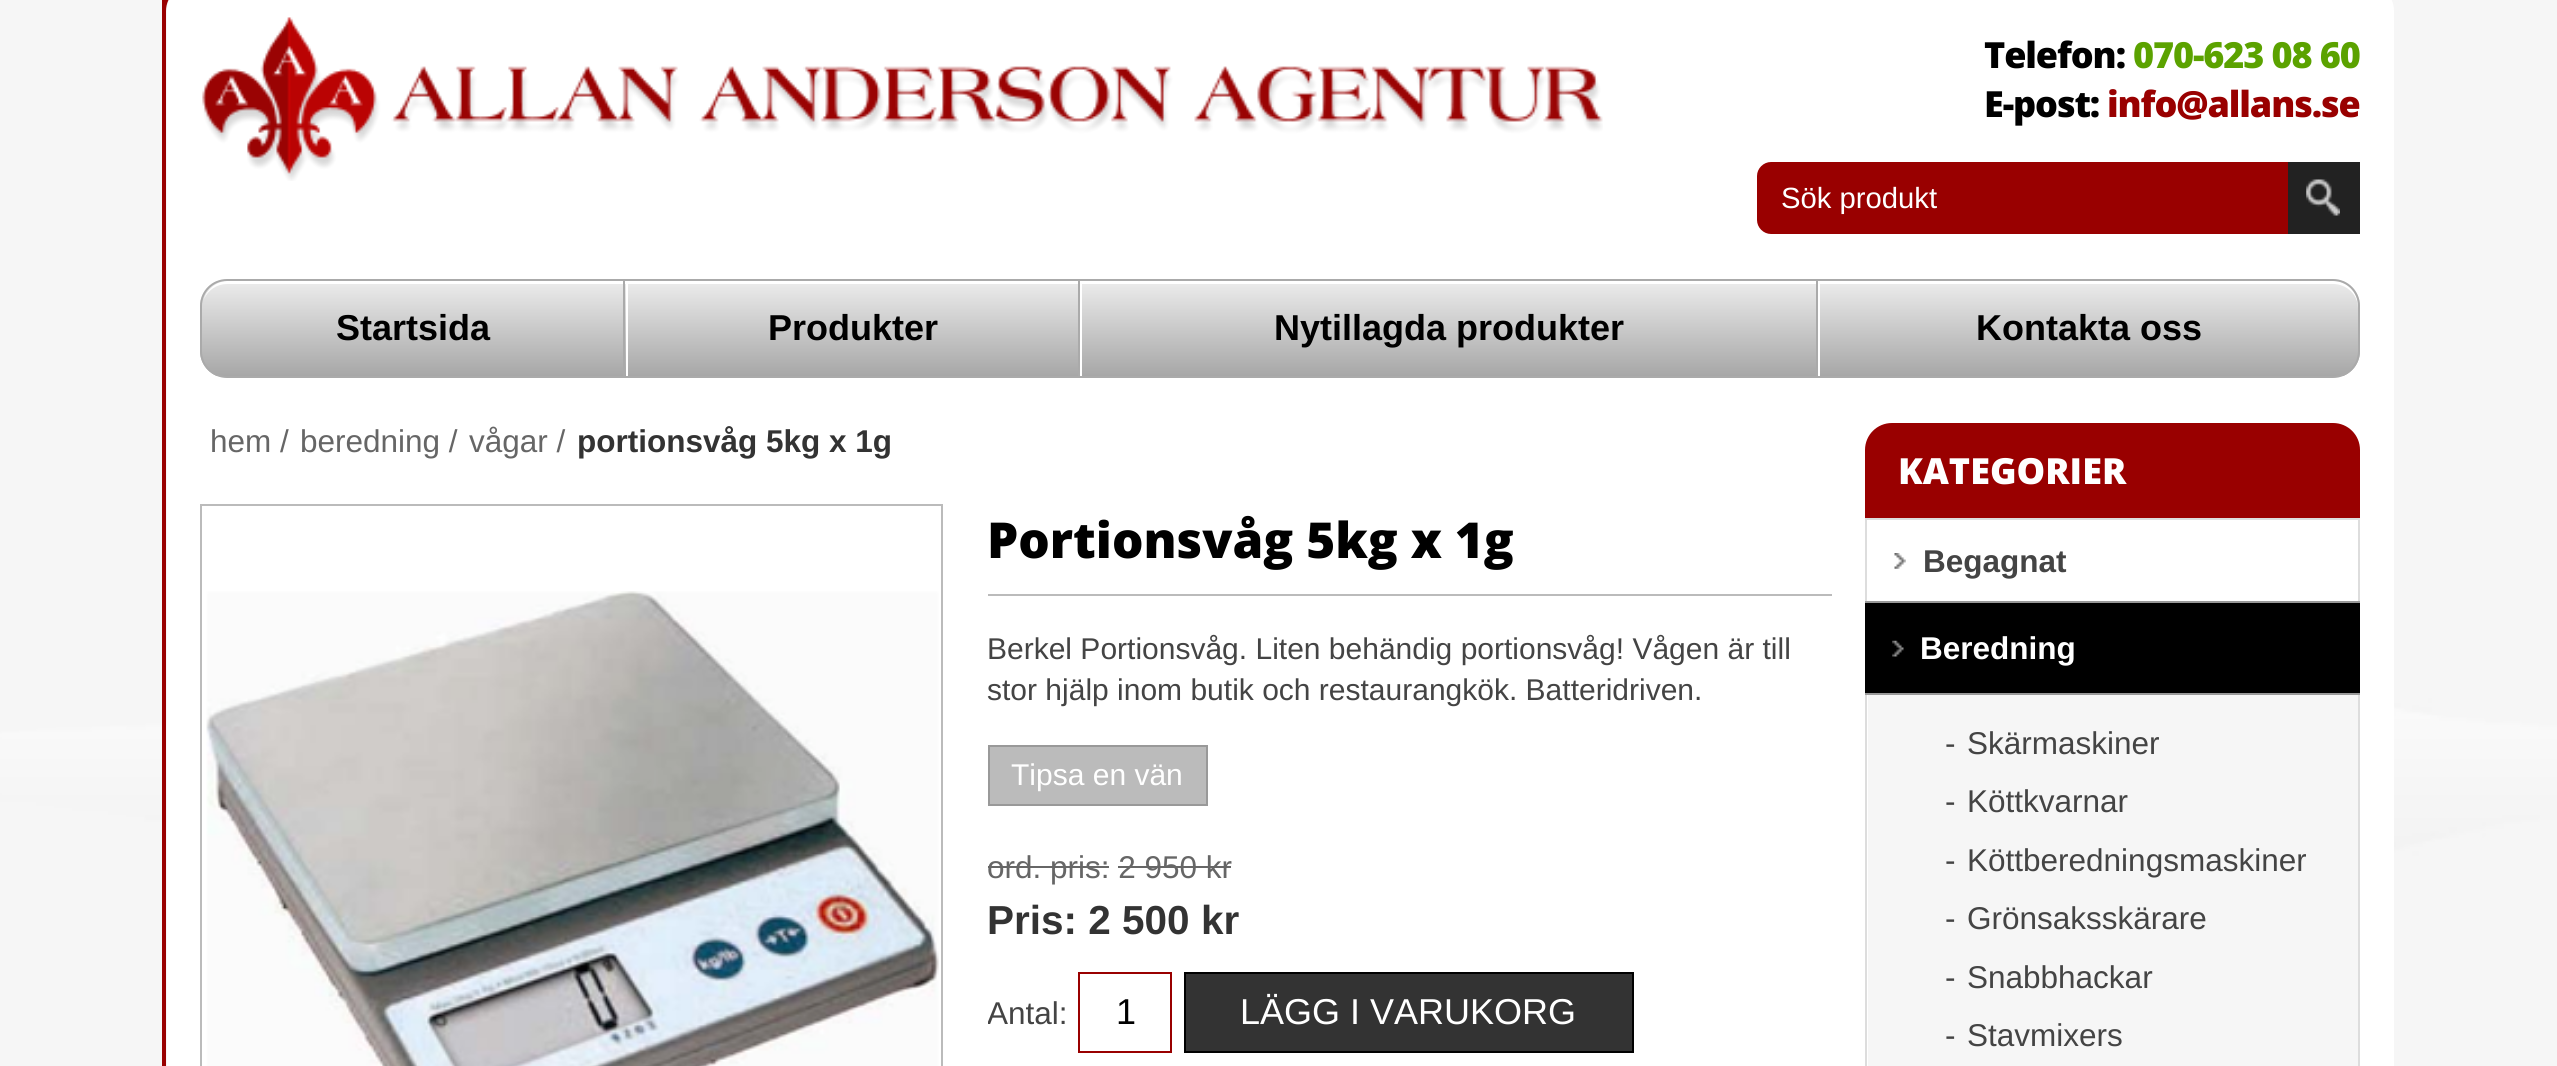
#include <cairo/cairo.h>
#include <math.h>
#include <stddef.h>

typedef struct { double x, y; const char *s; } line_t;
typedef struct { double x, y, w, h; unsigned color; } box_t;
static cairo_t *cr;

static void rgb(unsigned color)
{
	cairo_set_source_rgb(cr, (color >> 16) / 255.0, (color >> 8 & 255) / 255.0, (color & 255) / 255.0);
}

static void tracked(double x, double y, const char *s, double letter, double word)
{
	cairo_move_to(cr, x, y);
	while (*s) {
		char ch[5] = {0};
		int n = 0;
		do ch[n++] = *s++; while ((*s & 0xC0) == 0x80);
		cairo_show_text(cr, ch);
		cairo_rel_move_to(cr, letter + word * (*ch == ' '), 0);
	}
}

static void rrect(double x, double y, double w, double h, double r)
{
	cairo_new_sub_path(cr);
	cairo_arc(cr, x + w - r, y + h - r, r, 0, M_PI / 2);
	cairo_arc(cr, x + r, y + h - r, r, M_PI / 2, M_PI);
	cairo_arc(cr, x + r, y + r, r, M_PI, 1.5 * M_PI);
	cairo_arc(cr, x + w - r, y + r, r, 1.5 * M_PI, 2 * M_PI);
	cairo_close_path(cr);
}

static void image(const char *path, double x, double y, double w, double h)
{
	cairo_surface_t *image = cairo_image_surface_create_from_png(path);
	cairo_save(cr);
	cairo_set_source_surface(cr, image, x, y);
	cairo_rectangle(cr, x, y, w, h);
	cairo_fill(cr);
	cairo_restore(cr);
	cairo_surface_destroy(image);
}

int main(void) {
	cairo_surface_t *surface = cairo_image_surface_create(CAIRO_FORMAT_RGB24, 2557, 1066);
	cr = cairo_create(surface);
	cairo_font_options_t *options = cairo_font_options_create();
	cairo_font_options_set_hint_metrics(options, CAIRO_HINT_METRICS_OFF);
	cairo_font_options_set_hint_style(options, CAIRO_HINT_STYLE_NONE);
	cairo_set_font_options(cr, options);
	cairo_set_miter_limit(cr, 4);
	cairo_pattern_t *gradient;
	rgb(0xffffff);
	cairo_paint(cr);
	image("img/1.png", 0, 0, 2557, 1066);
	rgb(0x990000);
	cairo_new_path(cr);
	cairo_move_to(cr, 189, -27);
	cairo_curve_to(cr, 174, -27, 162, -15, 162, 0);
	cairo_line_to(cr, 162, 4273);
	cairo_curve_to(cr, 162, 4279, 164, 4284, 167, 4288);
	cairo_line_to(cr, 166, 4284);
	cairo_line_to(cr, 166, 11);
	cairo_curve_to(cr, 166, -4, 179, -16, 194, -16);
	cairo_line_to(cr, 2367, -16);
	cairo_curve_to(cr, 2377, -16, 2385, -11, 2390, -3);
	cairo_curve_to(cr, 2388, -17, 2377, -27, 2363, -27);
	cairo_close_path(cr);
	cairo_fill(cr);
	rgb(0xffffff);
	rrect(167, -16, 2227, 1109, 27);
	cairo_fill(cr);
	image("img/2.png", 202, 17, 1401, 164);
	rgb(0x990000);
	cairo_new_path(cr);
	cairo_move_to(cr, 1771, 163);
	cairo_line_to(cr, 2287, 163);
	cairo_line_to(cr, 2287, 233);
	cairo_line_to(cr, 1771, 233);
	cairo_curve_to(cr, 1764, 233, 1758, 227, 1758, 220);
	cairo_line_to(cr, 1758, 176);
	cairo_curve_to(cr, 1758, 169, 1764, 163, 1771, 163);
	cairo_close_path(cr);
	cairo_fill_preserve(cr);
	cairo_stroke(cr);
	rgb(0x222222);
	cairo_rectangle(cr, 2288, 162, 72, 72);
	cairo_fill(cr);
	image("img/3.png", 2306, 179, 34, 37);
	cairo_save(cr);
	rrect(200, 279, 2160, 99, 27);
	cairo_clip(cr);
	gradient = cairo_pattern_create_linear(1280, 281, 1280, 376);
	cairo_pattern_add_color_stop_rgba(gradient, 0, 0.925, 0.925, 0.925, 1);
	cairo_pattern_add_color_stop_rgba(gradient, 1, 0.655, 0.655, 0.655, 1);
	cairo_set_source(cr, gradient);
	cairo_pattern_destroy(gradient);
	cairo_rectangle(cr, 200, 281, 2160, 95);
	cairo_fill(cr);
	cairo_restore(cr);
	rgb(0xffffff);
	cairo_new_path(cr);
	cairo_move_to(cr, 227, 284);
	cairo_line_to(cr, 2333, 284);
	cairo_curve_to(cr, 2347, 284, 2358, 295, 2358, 308);
	cairo_line_to(cr, 2358, 306);
	cairo_curve_to(cr, 2358, 292, 2347, 281, 2333, 281);
	cairo_line_to(cr, 228, 281);
	cairo_curve_to(cr, 217, 281, 207, 289, 204, 299);
	cairo_curve_to(cr, 208, 290, 217, 284, 227, 284);
	cairo_close_path(cr);
	cairo_fill(cr);
	rrect(201, 280, 2158, 97, 26);
	rgb(0xaaaaaa);
	cairo_stroke(cr);
	{
		static const box_t items[] = {
			{623, 281, 2, 95, 0xaaaaaa},
			{1078, 281, 2, 95, 0xaaaaaa},
			{626, 281, 2, 95, 0xffffff},
			{1816, 281, 2, 95, 0xaaaaaa},
			{1080, 281, 2, 95, 0xffffff},
			{1818, 281, 2, 95, 0xffffff},
		};
		for (size_t i = 0; i < sizeof items / sizeof *items; i++) {
			rgb(items[i].color);
			cairo_rectangle(cr, items[i].x, items[i].y, items[i].w, items[i].h);
			cairo_fill(cr);
		}
	}
	cairo_rectangle(cr, 201, 505, 741, 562);
	rgb(0xbbbbbb);
	cairo_stroke(cr);
	image("img/4.png", 206, 591, 733, 475);
	cairo_rectangle(cr, 988, 594, 844, 2);
	cairo_fill(cr);
	cairo_rectangle(cr, 989, 746, 218, 59);
	cairo_fill_preserve(cr);
	rgb(0x999999);
	cairo_stroke(cr);
	rgb(0x666666);
	cairo_rectangle(cr, 988, 866, 121, 2);
	cairo_fill(cr);
	cairo_rectangle(cr, 1118, 866, 113, 2);
	cairo_fill(cr);
	cairo_rectangle(cr, 1079, 973, 92, 79);
	rgb(0x990000);
	cairo_stroke(cr);
	rgb(0x333333);
	cairo_rectangle(cr, 1185, 973, 448, 79);
	cairo_fill_preserve(cr);
	rgb(0x000000);
	cairo_stroke(cr);
	rgb(0x990000);
	cairo_new_path(cr);
	cairo_move_to(cr, 1892, 423);
	cairo_line_to(cr, 2333, 423);
	cairo_curve_to(cr, 2348, 423, 2360, 435, 2360, 450);
	cairo_line_to(cr, 2360, 518);
	cairo_line_to(cr, 1865, 518);
	cairo_line_to(cr, 1865, 450);
	cairo_curve_to(cr, 1865, 435, 1877, 423, 1892, 423);
	cairo_close_path(cr);
	cairo_fill(cr);
	cairo_rectangle(cr, 1866, 519, 493, 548);
	rgb(0xdddddd);
	cairo_stroke(cr);
	image("img/5.png", 1894, 553, 12, 16);
	rgb(0x000000);
	cairo_rectangle(cr, 1865, 603, 495, 90);
	cairo_fill(cr);
	image("img/6.png", 1892, 640, 12, 17);
	{
		static const box_t items[] = {
			{1865, 601, 495, 2, 0x999999},
			{1865, 693, 495, 2, 0x999999},
			{1868, 695, 490, 371, 0xf6f6f6},
		};
		for (size_t i = 0; i < sizeof items / sizeof *items; i++) {
			rgb(items[i].color);
			cairo_rectangle(cr, items[i].x, items[i].y, items[i].w, items[i].h);
			cairo_fill(cr);
		}
	}
	cairo_select_font_face(cr, "Open Sans ExtraBold", CAIRO_FONT_SLANT_NORMAL, CAIRO_FONT_WEIGHT_NORMAL);
	cairo_set_font_size(cr, 36);
	rgb(0x000000);
	tracked(1984, 68, "Telefon:", -1.1, 0);
	rgb(0x5ba200);
	tracked(2133, 68, "070-623 08 60", -1.1, 0);
	rgb(0x000000);
	tracked(1984, 117, "E-post:", -1.1, 0);
	rgb(0x990000);
	tracked(2107, 117, "info@allans.se", -1.1, 0);
	cairo_select_font_face(cr, "Liberation Sans", CAIRO_FONT_SLANT_NORMAL, CAIRO_FONT_WEIGHT_NORMAL);
	cairo_set_font_size(cr, 29.25);
	rgb(0xffffff);
	cairo_move_to(cr, 1781, 208);
	cairo_show_text(cr, "Sök produkt");
	cairo_select_font_face(cr, "Liberation Sans", CAIRO_FONT_SLANT_NORMAL, CAIRO_FONT_WEIGHT_BOLD);
	cairo_set_font_size(cr, 36);
	rgb(0x000000);
	{
		static const line_t items[] = {
			{336, 340, "Startsida"},
			{768, 340, "Produkter"},
			{1274, 340, "Nytillagda produkter"},
			{1976, 340, "Kontakta oss"},
		};
		for (size_t i = 0; i < sizeof items / sizeof *items; i++) {
			cairo_move_to(cr, items[i].x, items[i].y);
			cairo_show_text(cr, items[i].s);
		}
	}
	cairo_select_font_face(cr, "Liberation Sans", CAIRO_FONT_SLANT_NORMAL, CAIRO_FONT_WEIGHT_NORMAL);
	cairo_set_font_size(cr, 31.5);
	rgb(0x666666);
	{
		static const line_t items[] = {
			{210, 452, "hem /"},
			{300, 452, "beredning /"},
			{469, 452, "vågar /"},
		};
		for (size_t i = 0; i < sizeof items / sizeof *items; i++) {
			cairo_move_to(cr, items[i].x, items[i].y);
			cairo_show_text(cr, items[i].s);
		}
	}
	cairo_select_font_face(cr, "Liberation Sans", CAIRO_FONT_SLANT_NORMAL, CAIRO_FONT_WEIGHT_BOLD);
	rgb(0x333333);
	cairo_move_to(cr, 577, 452);
	cairo_show_text(cr, "portionsvåg 5kg x 1g");
	cairo_select_font_face(cr, "Open Sans ExtraBold", CAIRO_FONT_SLANT_NORMAL, CAIRO_FONT_WEIGHT_NORMAL);
	cairo_set_font_size(cr, 49.5);
	rgb(0x000000);
	cairo_move_to(cr, 987, 558);
	cairo_show_text(cr, "Portionsvåg 5kg x 1g");
	cairo_select_font_face(cr, "Liberation Sans", CAIRO_FONT_SLANT_NORMAL, CAIRO_FONT_WEIGHT_NORMAL);
	cairo_set_font_size(cr, 30);
	rgb(0x444444);
	cairo_move_to(cr, 987, 659);
	cairo_show_text(cr, "Berkel Portionsvåg. Liten behändig portionsvåg! Vågen är till");
	cairo_move_to(cr, 987, 700);
	cairo_show_text(cr, "stor hjälp inom butik och restaurangkök. Batteridriven.");
	rgb(0xffffff);
	cairo_move_to(cr, 1011, 785);
	cairo_show_text(cr, "Tipsa en vän");
	cairo_set_font_size(cr, 31.5);
	rgb(0x666666);
	cairo_move_to(cr, 987, 878);
	cairo_show_text(cr, "ord. pris: 2 950 kr");
	cairo_select_font_face(cr, "Liberation Sans", CAIRO_FONT_SLANT_NORMAL, CAIRO_FONT_WEIGHT_BOLD);
	cairo_set_font_size(cr, 40.5);
	rgb(0x333333);
	cairo_move_to(cr, 987, 934);
	cairo_show_text(cr, "Pris: 2 500 kr");
	cairo_save(cr);
	cairo_rectangle(cr, 988, 972, 844, 81);
	cairo_clip(cr);
	cairo_select_font_face(cr, "Liberation Sans", CAIRO_FONT_SLANT_NORMAL, CAIRO_FONT_WEIGHT_NORMAL);
	cairo_set_font_size(cr, 31.5);
	rgb(0x444444);
	cairo_move_to(cr, 987, 1024);
	cairo_show_text(cr, "Antal:");
	cairo_restore(cr);
	cairo_select_font_face(cr, "Liberation Sans", CAIRO_FONT_SLANT_NORMAL, CAIRO_FONT_WEIGHT_NORMAL);
	cairo_set_font_size(cr, 36);
	rgb(0x000000);
	cairo_move_to(cr, 1116, 1024);
	cairo_show_text(cr, "1");
	rgb(0xffffff);
	cairo_move_to(cr, 1240, 1024);
	cairo_show_text(cr, "LÄGG I VARUKORG");
	cairo_select_font_face(cr, "Open Sans ExtraBold", CAIRO_FONT_SLANT_NORMAL, CAIRO_FONT_WEIGHT_NORMAL);
	cairo_move_to(cr, 1898, 484);
	cairo_show_text(cr, "KATEGORIER");
	cairo_select_font_face(cr, "Liberation Sans", CAIRO_FONT_SLANT_NORMAL, CAIRO_FONT_WEIGHT_BOLD);
	cairo_set_font_size(cr, 31.5);
	rgb(0x444444);
	cairo_move_to(cr, 1923, 572);
	cairo_show_text(cr, "Begagnat");
	rgb(0xffffff);
	cairo_move_to(cr, 1920, 659);
	cairo_show_text(cr, "Beredning");
	cairo_select_font_face(cr, "Liberation Sans", CAIRO_FONT_SLANT_NORMAL, CAIRO_FONT_WEIGHT_NORMAL);
	rgb(0x444444);
	{
		static const line_t items[] = {
			{1945, 754, "-"},
			{1967, 754, "Skärmaskiner"},
			{1945, 812, "-"},
			{1967, 812, "Köttkvarnar"},
			{1945, 871, "-"},
			{1967, 871, "Köttberedningsmaskiner"},
			{1945, 929, "-"},
			{1967, 929, "Grönsaksskärare"},
			{1945, 988, "-"},
			{1967, 988, "Snabbhackar"},
			{1945, 1046, "-"},
			{1967, 1046, "Stavmixers"},
		};
		for (size_t i = 0; i < sizeof items / sizeof *items; i++) {
			cairo_move_to(cr, items[i].x, items[i].y);
			cairo_show_text(cr, items[i].s);
		}
	}
	cairo_surface_write_to_png(surface, "page.png");
	cairo_font_options_destroy(options);
	cairo_destroy(cr);
	cairo_surface_destroy(surface);
	return 0;
}
